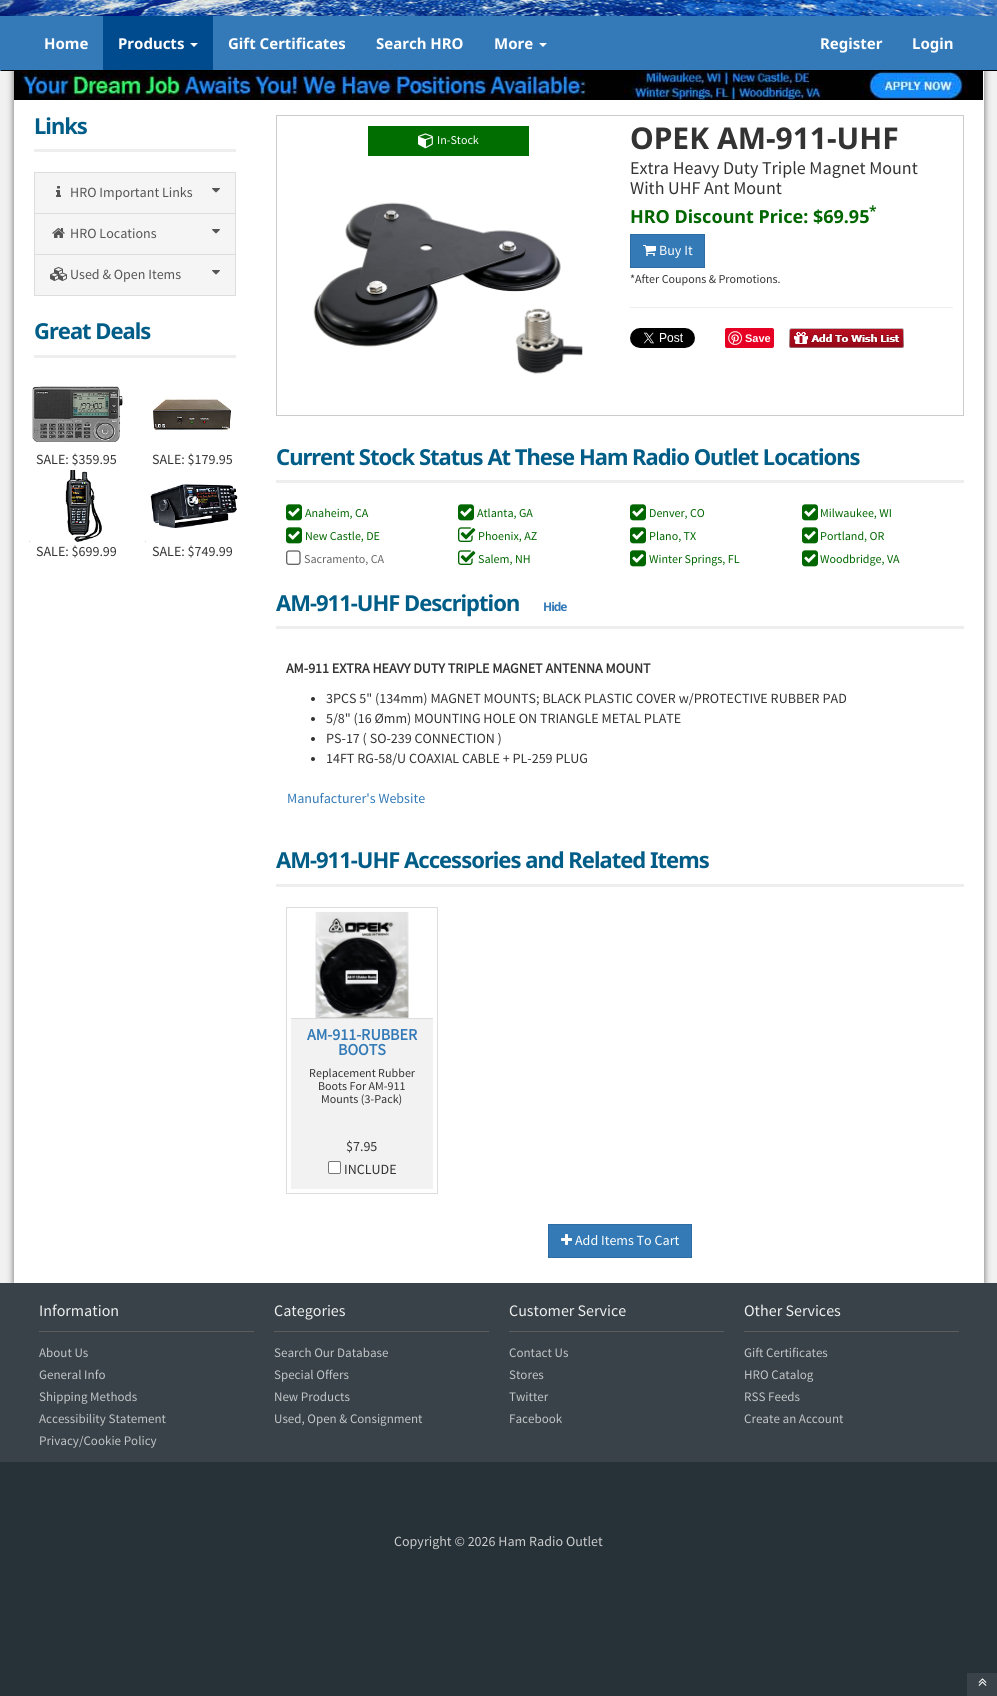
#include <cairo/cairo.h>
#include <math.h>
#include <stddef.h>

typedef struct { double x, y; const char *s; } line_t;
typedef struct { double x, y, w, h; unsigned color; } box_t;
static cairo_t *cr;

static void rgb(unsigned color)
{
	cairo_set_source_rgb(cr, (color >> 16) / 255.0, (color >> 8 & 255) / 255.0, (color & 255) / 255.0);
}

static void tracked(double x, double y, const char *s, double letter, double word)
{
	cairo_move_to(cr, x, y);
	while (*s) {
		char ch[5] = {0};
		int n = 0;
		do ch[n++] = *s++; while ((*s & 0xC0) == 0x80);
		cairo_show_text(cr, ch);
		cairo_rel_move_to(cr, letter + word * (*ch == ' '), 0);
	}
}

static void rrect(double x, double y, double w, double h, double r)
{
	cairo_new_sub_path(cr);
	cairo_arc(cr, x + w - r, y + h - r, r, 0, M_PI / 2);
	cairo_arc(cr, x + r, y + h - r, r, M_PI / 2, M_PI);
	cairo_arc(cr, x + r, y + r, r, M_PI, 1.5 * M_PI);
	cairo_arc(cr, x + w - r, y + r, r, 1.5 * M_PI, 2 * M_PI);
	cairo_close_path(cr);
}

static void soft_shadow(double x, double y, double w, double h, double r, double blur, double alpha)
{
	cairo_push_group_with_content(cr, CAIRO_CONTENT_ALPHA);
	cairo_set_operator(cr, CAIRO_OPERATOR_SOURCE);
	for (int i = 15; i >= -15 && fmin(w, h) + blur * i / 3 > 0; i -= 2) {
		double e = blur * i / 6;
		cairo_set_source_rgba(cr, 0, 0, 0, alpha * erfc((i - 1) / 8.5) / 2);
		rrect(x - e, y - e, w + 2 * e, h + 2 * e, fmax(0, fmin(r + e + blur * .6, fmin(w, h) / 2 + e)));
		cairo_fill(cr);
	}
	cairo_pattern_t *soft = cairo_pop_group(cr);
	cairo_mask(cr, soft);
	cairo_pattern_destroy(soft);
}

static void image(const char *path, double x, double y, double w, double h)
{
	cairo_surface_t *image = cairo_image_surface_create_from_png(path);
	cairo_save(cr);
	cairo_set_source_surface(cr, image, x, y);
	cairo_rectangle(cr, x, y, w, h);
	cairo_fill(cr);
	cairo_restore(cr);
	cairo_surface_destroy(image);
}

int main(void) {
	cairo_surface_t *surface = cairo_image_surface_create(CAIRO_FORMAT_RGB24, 997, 1696);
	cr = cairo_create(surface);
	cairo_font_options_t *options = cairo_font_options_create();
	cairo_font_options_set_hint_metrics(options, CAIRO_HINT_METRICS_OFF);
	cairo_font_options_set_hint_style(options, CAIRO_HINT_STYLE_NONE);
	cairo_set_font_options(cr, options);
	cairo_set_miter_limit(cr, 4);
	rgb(0xf1f1f1);
	cairo_paint(cr);
	image("img/1.png", 0, 0, 997, 16);
	rgb(0x666666);
	soft_shadow(14, 71, 970, 1212, 0, 3.5, 1);
	{
		static const box_t items[] = {
			{1, 16, 996, 54, 0x347ab8},
			{0, 70, 997, 1, 0x000000},
			{0, 16, 1, 55, 0x347ab8},
			{103, 16, 110, 54, 0x004b8e},
		};
		for (size_t i = 0; i < sizeof items / sizeof *items; i++) {
			rgb(items[i].color);
			cairo_rectangle(cr, items[i].x, items[i].y, items[i].w, items[i].h);
			cairo_fill(cr);
		}
	}
	rgb(0xffffff);
	cairo_new_path(cr);
	cairo_move_to(cr, 190, 43);
	cairo_line_to(cr, 198, 43);
	cairo_line_to(cr, 194, 47);
	cairo_close_path(cr);
	cairo_fill(cr);
	cairo_new_path(cr);
	cairo_move_to(cr, 539, 43);
	cairo_line_to(cr, 547, 43);
	cairo_line_to(cr, 543, 47);
	cairo_close_path(cr);
	cairo_fill(cr);
	cairo_rectangle(cr, 14, 71, 970, 1212);
	cairo_fill(cr);
	image("img/2.png", 14, 71, 969, 29);
	rgb(0xeeeeee);
	cairo_rectangle(cr, 34, 149, 202, 3);
	cairo_fill(cr);
	rgb(0xf5f5f5);
	cairo_rectangle(cr, 34.5, 172.5, 201, 41);
	cairo_fill_preserve(cr);
	rgb(0xdddddd);
	cairo_set_line_width(cr, 1);
	cairo_stroke(cr);
	image("img/3.png", 56, 186, 5, 11);
	image("img/4.png", 212, 188, 8, 5);
	rgb(0xf5f5f5);
	cairo_rectangle(cr, 34.5, 213.5, 201, 41);
	cairo_fill_preserve(cr);
	rgb(0xdddddd);
	cairo_stroke(cr);
	image("img/5.png", 52, 228, 13, 10);
	image("img/4.png", 212, 229, 8, 5);
	rgb(0xf5f5f5);
	cairo_rectangle(cr, 34.5, 254.5, 201, 41);
	cairo_fill_preserve(cr);
	rgb(0xdddddd);
	cairo_stroke(cr);
	image("img/6.png", 50, 267, 17, 14);
	image("img/4.png", 212, 270, 8, 5);
	rgb(0xeeeeee);
	cairo_rectangle(cr, 34, 355, 202, 3);
	cairo_fill(cr);
	image("img/7.png", 32, 386, 91, 56);
	image("img/8.png", 153, 399, 78, 31);
	image("img/9.png", 29, 470, 73, 72);
	image("img/10.png", 145, 484, 93, 58);
	cairo_rectangle(cr, 276.5, 115.5, 687, 300);
	rgb(0xcccccc);
	cairo_stroke(cr);
	rgb(0x006e00);
	cairo_rectangle(cr, 368, 126, 161, 30);
	cairo_fill(cr);
	image("img/11.png", 418, 133, 15, 16);
	image("img/12.png", 313, 202, 270, 172);
	rgb(0x337ab7);
	cairo_rectangle(cr, 630.5, 234.5, 74, 33);
	cairo_fill_preserve(cr);
	rgb(0x2e6da4);
	cairo_stroke(cr);
	image("img/13.png", 643, 245, 13, 11);
	rgb(0xeeeeee);
	cairo_rectangle(cr, 630, 307, 323, 1);
	cairo_fill(cr);
	image("img/14.png", 630, 328, 65, 20);
	rgb(0xe60023);
	rrect(725, 328, 49, 20, 2);
	cairo_fill(cr);
	image("img/15.png", 728, 331, 14, 14);
	image("img/16.png", 789, 328, 115, 20);
	rgb(0xeeeeee);
	cairo_rectangle(cr, 276, 480, 688, 3);
	cairo_fill(cr);
	image("img/17.png", 286, 504, 16, 17);
	image("img/17.png", 458, 504, 16, 17);
	image("img/17.png", 630, 504, 16, 17);
	image("img/17.png", 802, 504, 16, 17);
	image("img/17.png", 286, 527, 16, 17);
	image("img/18.png", 458, 527, 18, 15);
	image("img/17.png", 630, 527, 16, 17);
	image("img/17.png", 802, 527, 16, 17);
	image("img/19.png", 286, 550, 15, 15);
	image("img/18.png", 458, 550, 18, 15);
	image("img/17.png", 630, 550, 16, 17);
	image("img/17.png", 802, 550, 16, 17);
	cairo_rectangle(cr, 276, 626, 688, 3);
	cairo_fill(cr);
	rgb(0x333333);
	cairo_arc(cr, 313, 699, 2, 0, 2 * M_PI);
	cairo_fill(cr);
	cairo_arc(cr, 313, 719, 2, 0, 2 * M_PI);
	cairo_fill(cr);
	cairo_arc(cr, 313, 739, 2, 0, 2 * M_PI);
	cairo_fill(cr);
	cairo_arc(cr, 313, 759, 2, 0, 2 * M_PI);
	cairo_fill(cr);
	rgb(0xeeeeee);
	cairo_rectangle(cr, 276, 884, 688, 3);
	cairo_fill(cr);
	cairo_rectangle(cr, 286.5, 907.5, 151, 286);
	rgb(0xdddddd);
	cairo_stroke(cr);
	image("img/20.png", 315, 912, 94, 106);
	rgb(0xf2f2f2);
	cairo_rectangle(cr, 291, 1019, 142, 170);
	cairo_fill(cr);
	rgb(0xdddddd);
	cairo_rectangle(cr, 291, 1018, 142, 1);
	cairo_fill(cr);
	rgb(0xffffff);
	rrect(328.5, 1161.5, 12, 12, 1.5);
	cairo_fill_preserve(cr);
	rgb(0x767676);
	cairo_stroke(cr);
	rgb(0x337ab7);
	cairo_rectangle(cr, 548.5, 1224.5, 143, 33);
	cairo_fill_preserve(cr);
	rgb(0x2e6da4);
	cairo_stroke(cr);
	image("img/21.png", 561, 1234, 11, 11);
	{
		static const box_t items[] = {
			{0, 1283, 997, 179, 0x384248},
			{39, 1331, 215, 1, 0x5d5d5d},
			{274, 1331, 215, 1, 0x5d5d5d},
			{509, 1331, 215, 1, 0x5d5d5d},
			{744, 1331, 215, 1, 0x5d5d5d},
			{0, 1462, 997, 234, 0x263238},
			{967, 1673, 30, 23, 0x384248},
		};
		for (size_t i = 0; i < sizeof items / sizeof *items; i++) {
			rgb(items[i].color);
			cairo_rectangle(cr, items[i].x, items[i].y, items[i].w, items[i].h);
			cairo_fill(cr);
		}
	}
	image("img/22.png", 978, 1678, 9, 8);
	cairo_select_font_face(cr, "Noto Sans", CAIRO_FONT_SLANT_NORMAL, CAIRO_FONT_WEIGHT_BOLD);
	cairo_set_font_size(cr, 15);
	rgb(0xffffff);
	{
		static const line_t items[] = {
			{44, 49, "Home"},
			{118, 49, "Products"},
			{228, 49, "Gift Certificates"},
			{376, 49, "Search HRO"},
			{494, 49, "More"},
			{820, 49, "Register"},
			{912, 49, "Login"},
		};
		for (size_t i = 0; i < sizeof items / sizeof *items; i++) {
			cairo_move_to(cr, items[i].x, items[i].y);
			cairo_show_text(cr, items[i].s);
		}
	}
	cairo_set_font_size(cr, 22);
	rgb(0x005d87);
	tracked(34, 134, "Links", -1, 0);
	cairo_select_font_face(cr, "Source Sans Pro", CAIRO_FONT_SLANT_NORMAL, CAIRO_FONT_WEIGHT_NORMAL);
	cairo_set_font_size(cr, 14);
	rgb(0x555555);
	{
		static const line_t items[] = {
			{70, 197, "HRO Important Links"},
			{70, 238, "HRO Locations"},
			{70, 279, "Used & Open Items"},
		};
		for (size_t i = 0; i < sizeof items / sizeof *items; i++) {
			cairo_move_to(cr, items[i].x, items[i].y);
			cairo_show_text(cr, items[i].s);
		}
	}
	cairo_select_font_face(cr, "Noto Sans", CAIRO_FONT_SLANT_NORMAL, CAIRO_FONT_WEIGHT_BOLD);
	cairo_set_font_size(cr, 22);
	rgb(0x005d87);
	tracked(34, 339, "Great Deals", -1, 0);
	cairo_select_font_face(cr, "Source Sans Pro", CAIRO_FONT_SLANT_NORMAL, CAIRO_FONT_WEIGHT_NORMAL);
	cairo_set_font_size(cr, 14);
	rgb(0x333333);
	{
		static const line_t items[] = {
			{36, 464, "SALE: $359.95"},
			{152, 464, "SALE: $179.95"},
			{36, 556, "SALE: $699.99"},
			{152, 556, "SALE: $749.99"},
		};
		for (size_t i = 0; i < sizeof items / sizeof *items; i++) {
			cairo_move_to(cr, items[i].x, items[i].y);
			cairo_show_text(cr, items[i].s);
		}
	}
	cairo_set_font_size(cr, 12);
	rgb(0xffffff);
	cairo_move_to(cr, 437, 144);
	cairo_show_text(cr, "In-Stock");
	cairo_select_font_face(cr, "Noto Sans", CAIRO_FONT_SLANT_NORMAL, CAIRO_FONT_WEIGHT_BOLD);
	cairo_set_font_size(cr, 30);
	rgb(0x333333);
	cairo_move_to(cr, 630, 149);
	cairo_show_text(cr, "OPEK AM-911-UHF");
	cairo_select_font_face(cr, "Source Sans Pro", CAIRO_FONT_SLANT_NORMAL, CAIRO_FONT_WEIGHT_NORMAL);
	cairo_set_font_size(cr, 18);
	cairo_move_to(cr, 630, 174);
	cairo_show_text(cr, "Extra Heavy Duty Triple Magnet Mount");
	cairo_move_to(cr, 630, 194);
	cairo_show_text(cr, "With UHF Ant Mount");
	cairo_select_font_face(cr, "Noto Sans", CAIRO_FONT_SLANT_NORMAL, CAIRO_FONT_WEIGHT_BOLD);
	rgb(0x006600);
	cairo_move_to(cr, 630, 223);
	cairo_show_text(cr, "HRO Discount Price: $69.95");
	cairo_select_font_face(cr, "Noto Sans SemiBold", CAIRO_FONT_SLANT_NORMAL, CAIRO_FONT_WEIGHT_NORMAL);
	cairo_set_font_size(cr, 14);
	cairo_move_to(cr, 869, 216);
	cairo_show_text(cr, "*");
	cairo_select_font_face(cr, "Source Sans Pro", CAIRO_FONT_SLANT_NORMAL, CAIRO_FONT_WEIGHT_NORMAL);
	rgb(0xffffff);
	cairo_move_to(cr, 659, 255);
	cairo_show_text(cr, "Buy It");
	cairo_set_font_size(cr, 12);
	rgb(0x333333);
	cairo_move_to(cr, 630, 283);
	cairo_show_text(cr, "*After Coupons & Promotions.");
	cairo_select_font_face(cr, "Liberation Sans", CAIRO_FONT_SLANT_NORMAL, CAIRO_FONT_WEIGHT_BOLD);
	cairo_set_font_size(cr, 11);
	rgb(0xffffff);
	cairo_move_to(cr, 745, 342);
	cairo_show_text(cr, "Save");
	cairo_select_font_face(cr, "Noto Sans", CAIRO_FONT_SLANT_NORMAL, CAIRO_FONT_WEIGHT_BOLD);
	cairo_set_font_size(cr, 22);
	rgb(0x005d87);
	tracked(276, 465, "Current Stock Status At These Ham Radio Outlet Locations", -1, 0);
	cairo_select_font_face(cr, "Source Sans Pro", CAIRO_FONT_SLANT_NORMAL, CAIRO_FONT_WEIGHT_NORMAL);
	cairo_set_font_size(cr, 12);
	rgb(0x006600);
	{
		static const line_t items[] = {
			{305, 517, "Anaheim, CA"},
			{477, 517, "Atlanta, GA"},
			{649, 517, "Denver, CO"},
			{820, 517, "Milwaukee, WI"},
			{305, 540, "New Castle, DE"},
			{478, 540, "Phoenix, AZ"},
			{649, 540, "Plano, TX"},
			{820, 540, "Portland, OR"},
		};
		for (size_t i = 0; i < sizeof items / sizeof *items; i++) {
			cairo_move_to(cr, items[i].x, items[i].y);
			cairo_show_text(cr, items[i].s);
		}
	}
	rgb(0x666666);
	cairo_move_to(cr, 304, 563);
	cairo_show_text(cr, "Sacramento, CA");
	rgb(0x006600);
	{
		static const line_t items[] = {
			{478, 563, "Salem, NH"},
			{649, 563, "Winter Springs, FL"},
			{820, 563, "Woodbridge, VA"},
		};
		for (size_t i = 0; i < sizeof items / sizeof *items; i++) {
			cairo_move_to(cr, items[i].x, items[i].y);
			cairo_show_text(cr, items[i].s);
		}
	}
	cairo_select_font_face(cr, "Noto Sans", CAIRO_FONT_SLANT_NORMAL, CAIRO_FONT_WEIGHT_BOLD);
	cairo_set_font_size(cr, 22);
	rgb(0x005d87);
	tracked(276, 611, "AM-911-UHF Description", -1, 0);
	cairo_set_font_size(cr, 12);
	rgb(0x337ab7);
	tracked(543, 611, "Hide", -1, 0);
	cairo_select_font_face(cr, "Source Sans Pro", CAIRO_FONT_SLANT_NORMAL, CAIRO_FONT_WEIGHT_BOLD);
	cairo_set_font_size(cr, 14);
	rgb(0x333333);
	cairo_move_to(cr, 286, 673);
	cairo_show_text(cr, "AM-911 EXTRA HEAVY DUTY TRIPLE MAGNET ANTENNA MOUNT");
	cairo_select_font_face(cr, "Source Sans Pro", CAIRO_FONT_SLANT_NORMAL, CAIRO_FONT_WEIGHT_NORMAL);
	{
		static const line_t items[] = {
			{326, 703, "3PCS 5\" (134mm) MAGNET MOUNTS; BLACK PLASTIC COVER w/PROTECTIVE RUBBER PAD"},
			{326, 723, "5/8\" (16 Ømm) MOUNTING HOLE ON TRIANGLE METAL PLATE"},
			{326, 743, "PS-17 ( SO-239 CONNECTION )"},
			{326, 763, "14FT RG-58/U COAXIAL CABLE + PL-259 PLUG"},
		};
		for (size_t i = 0; i < sizeof items / sizeof *items; i++) {
			cairo_move_to(cr, items[i].x, items[i].y);
			cairo_show_text(cr, items[i].s);
		}
	}
	rgb(0x337ab7);
	cairo_move_to(cr, 287, 803);
	cairo_show_text(cr, "Manufacturer's Website");
	cairo_select_font_face(cr, "Noto Sans", CAIRO_FONT_SLANT_NORMAL, CAIRO_FONT_WEIGHT_BOLD);
	cairo_set_font_size(cr, 22);
	rgb(0x005d87);
	tracked(276, 868, "AM-911-UHF Accessories and Related Items", -1, 0);
	cairo_select_font_face(cr, "Source Sans Pro", CAIRO_FONT_SLANT_NORMAL, CAIRO_FONT_WEIGHT_BOLD);
	cairo_set_font_size(cr, 16);
	rgb(0x337ab7);
	cairo_move_to(cr, 307, 1040);
	cairo_show_text(cr, "AM-911-RUBBER");
	cairo_move_to(cr, 338, 1055);
	cairo_show_text(cr, "BOOTS");
	cairo_select_font_face(cr, "Source Sans Pro", CAIRO_FONT_SLANT_NORMAL, CAIRO_FONT_WEIGHT_NORMAL);
	cairo_set_font_size(cr, 12);
	rgb(0x333333);
	{
		static const line_t items[] = {
			{309, 1077, "Replacement Rubber"},
			{318, 1090, "Boots For AM-911"},
			{321, 1103, "Mounts (3-Pack)"},
		};
		for (size_t i = 0; i < sizeof items / sizeof *items; i++) {
			cairo_move_to(cr, items[i].x, items[i].y);
			cairo_show_text(cr, items[i].s);
		}
	}
	cairo_set_font_size(cr, 14);
	cairo_move_to(cr, 346, 1151);
	cairo_show_text(cr, "$7.95");
	cairo_move_to(cr, 344, 1174);
	cairo_show_text(cr, "INCLUDE");
	rgb(0xffffff);
	cairo_move_to(cr, 575, 1245);
	cairo_show_text(cr, "Add Items To Cart");
	cairo_set_font_size(cr, 16);
	rgb(0xeeeeee);
	cairo_move_to(cr, 39, 1316);
	cairo_show_text(cr, "Information");
	cairo_set_font_size(cr, 13);
	rgb(0xc3c6c8);
	{
		static const line_t items[] = {
			{39, 1357, "About Us"},
			{39, 1379, "General Info"},
			{39, 1401, "Shipping Methods"},
			{39, 1423, "Accessibility Statement"},
			{39, 1445, "Privacy/Cookie Policy"},
		};
		for (size_t i = 0; i < sizeof items / sizeof *items; i++) {
			cairo_move_to(cr, items[i].x, items[i].y);
			cairo_show_text(cr, items[i].s);
		}
	}
	cairo_set_font_size(cr, 16);
	rgb(0xeeeeee);
	cairo_move_to(cr, 274, 1316);
	cairo_show_text(cr, "Categories");
	cairo_set_font_size(cr, 13);
	rgb(0xc3c6c8);
	{
		static const line_t items[] = {
			{274, 1357, "Search Our Database"},
			{274, 1379, "Special Offers"},
			{274, 1401, "New Products"},
			{274, 1423, "Used, Open & Consignment"},
		};
		for (size_t i = 0; i < sizeof items / sizeof *items; i++) {
			cairo_move_to(cr, items[i].x, items[i].y);
			cairo_show_text(cr, items[i].s);
		}
	}
	cairo_set_font_size(cr, 16);
	rgb(0xeeeeee);
	cairo_move_to(cr, 509, 1316);
	cairo_show_text(cr, "Customer Service");
	cairo_set_font_size(cr, 13);
	rgb(0xc3c6c8);
	{
		static const line_t items[] = {
			{509, 1357, "Contact Us"},
			{509, 1379, "Stores"},
			{509, 1401, "Twitter"},
			{509, 1423, "Facebook"},
		};
		for (size_t i = 0; i < sizeof items / sizeof *items; i++) {
			cairo_move_to(cr, items[i].x, items[i].y);
			cairo_show_text(cr, items[i].s);
		}
	}
	cairo_set_font_size(cr, 16);
	rgb(0xeeeeee);
	cairo_move_to(cr, 744, 1316);
	cairo_show_text(cr, "Other Services");
	cairo_set_font_size(cr, 13);
	rgb(0xc3c6c8);
	{
		static const line_t items[] = {
			{744, 1357, "Gift Certificates"},
			{744, 1379, "HRO Catalog"},
			{744, 1401, "RSS Feeds"},
			{744, 1423, "Create an Account"},
		};
		for (size_t i = 0; i < sizeof items / sizeof *items; i++) {
			cairo_move_to(cr, items[i].x, items[i].y);
			cairo_show_text(cr, items[i].s);
		}
	}
	cairo_set_font_size(cr, 14);
	rgb(0xcccccc);
	cairo_move_to(cr, 394, 1546);
	cairo_show_text(cr, "Copyright © 2026 Ham Radio Outlet");
	cairo_surface_write_to_png(surface, "page.png");
	cairo_font_options_destroy(options);
	cairo_destroy(cr);
	cairo_surface_destroy(surface);
	return 0;
}
